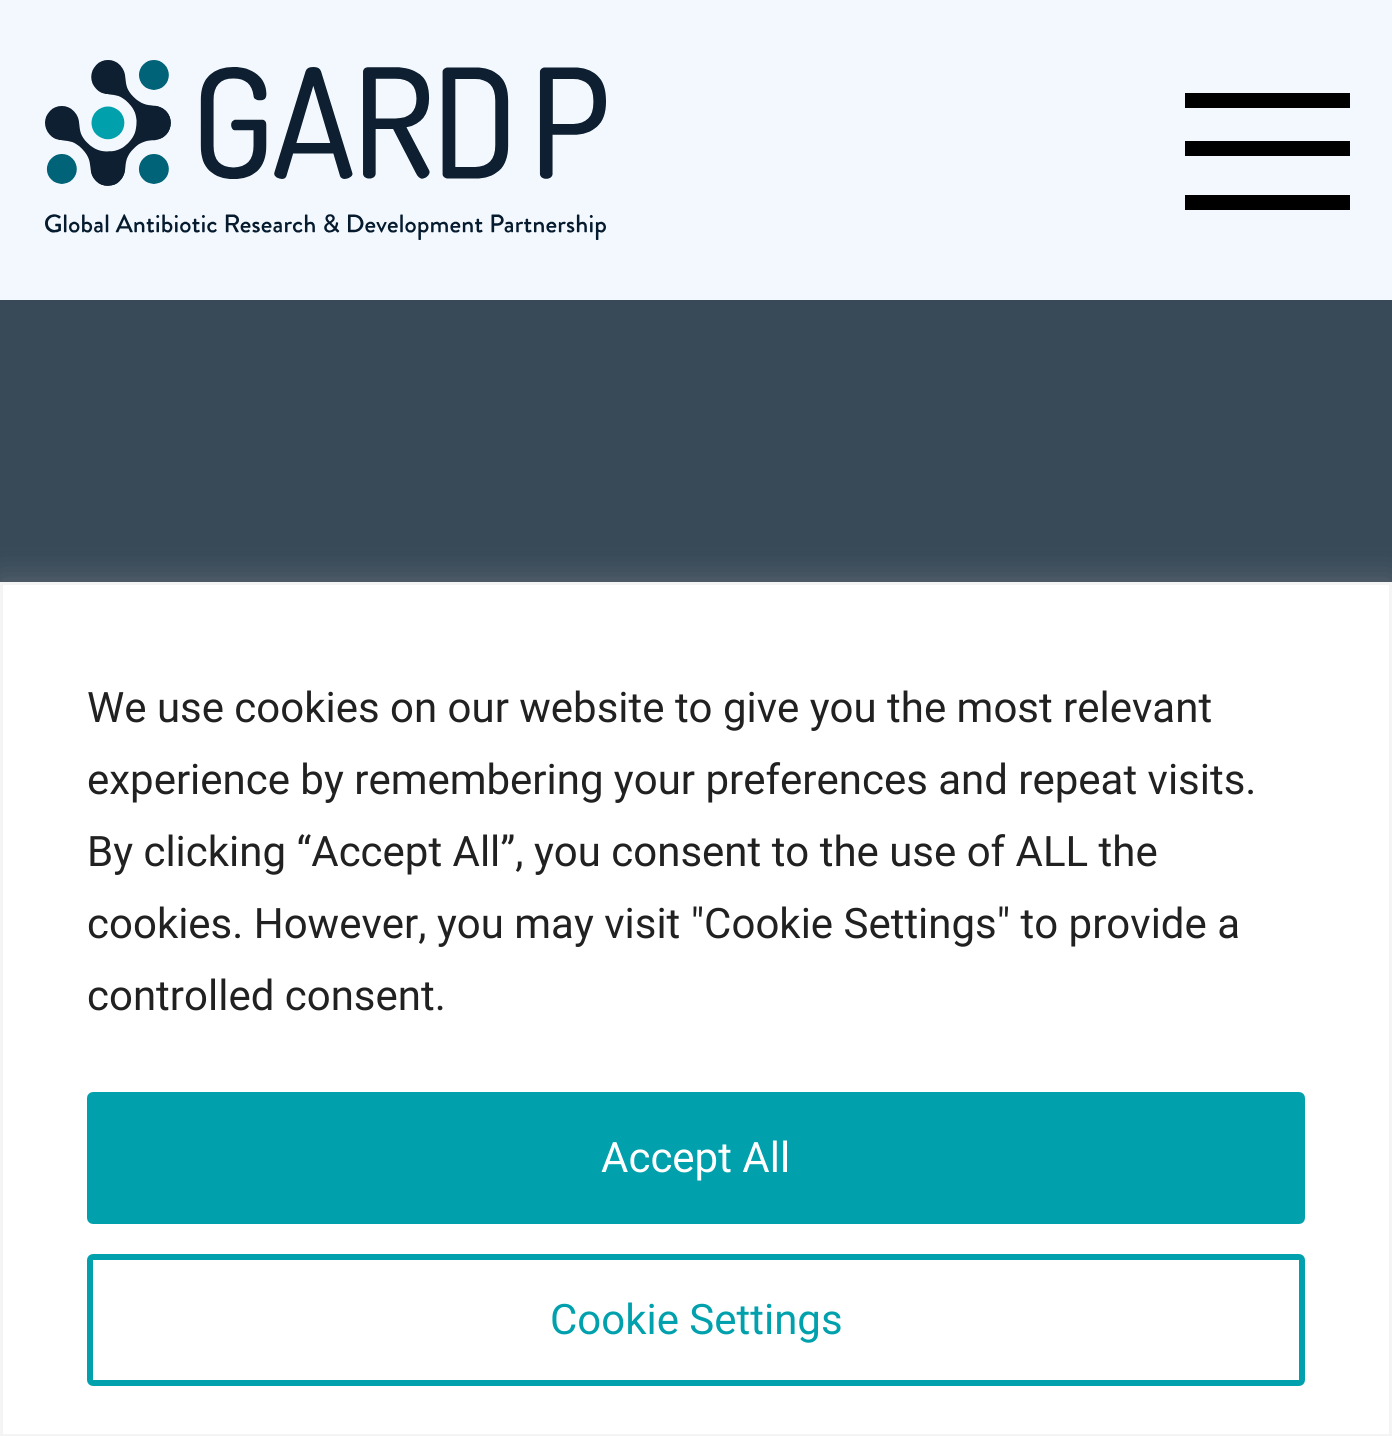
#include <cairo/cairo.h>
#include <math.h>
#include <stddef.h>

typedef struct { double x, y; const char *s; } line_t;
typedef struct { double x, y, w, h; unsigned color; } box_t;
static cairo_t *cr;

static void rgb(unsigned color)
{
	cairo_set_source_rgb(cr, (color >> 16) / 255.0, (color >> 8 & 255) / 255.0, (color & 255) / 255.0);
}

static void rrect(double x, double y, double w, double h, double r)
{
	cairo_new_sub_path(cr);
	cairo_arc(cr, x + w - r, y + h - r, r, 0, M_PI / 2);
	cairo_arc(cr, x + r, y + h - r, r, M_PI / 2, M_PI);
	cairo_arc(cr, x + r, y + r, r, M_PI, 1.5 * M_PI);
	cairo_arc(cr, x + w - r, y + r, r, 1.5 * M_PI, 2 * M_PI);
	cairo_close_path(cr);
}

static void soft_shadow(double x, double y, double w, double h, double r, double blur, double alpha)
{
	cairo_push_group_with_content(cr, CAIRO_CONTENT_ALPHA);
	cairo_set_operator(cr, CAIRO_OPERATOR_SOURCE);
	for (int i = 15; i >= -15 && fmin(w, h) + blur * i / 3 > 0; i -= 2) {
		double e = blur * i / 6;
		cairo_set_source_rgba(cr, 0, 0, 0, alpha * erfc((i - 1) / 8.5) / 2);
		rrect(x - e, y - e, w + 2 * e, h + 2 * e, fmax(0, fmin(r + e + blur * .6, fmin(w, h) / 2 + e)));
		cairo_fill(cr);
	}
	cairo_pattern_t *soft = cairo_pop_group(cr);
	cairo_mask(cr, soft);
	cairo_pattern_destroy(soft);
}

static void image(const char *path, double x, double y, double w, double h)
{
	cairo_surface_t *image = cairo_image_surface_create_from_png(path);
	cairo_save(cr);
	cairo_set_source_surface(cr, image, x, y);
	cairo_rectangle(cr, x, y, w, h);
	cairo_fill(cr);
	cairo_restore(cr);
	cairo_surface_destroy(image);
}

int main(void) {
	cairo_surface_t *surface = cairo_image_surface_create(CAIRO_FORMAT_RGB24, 1392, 1436);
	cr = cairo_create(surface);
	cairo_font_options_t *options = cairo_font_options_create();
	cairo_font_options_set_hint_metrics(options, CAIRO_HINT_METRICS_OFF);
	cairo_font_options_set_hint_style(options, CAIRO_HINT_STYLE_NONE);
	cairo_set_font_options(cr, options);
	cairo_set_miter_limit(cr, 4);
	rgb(0x384958);
	cairo_paint(cr);
	rgb(0xf3f8fe);
	cairo_rectangle(cr, 0, 0, 1392, 300);
	cairo_fill(cr);
	image("img/1.png", 45, 60, 561, 180);
	{
		static const box_t items[] = {
			{1185, 93, 165, 15, 0x000000},
			{1185, 141, 165, 15, 0x000000},
			{1185, 195, 165, 15, 0x000000},
		};
		for (size_t i = 0; i < sizeof items / sizeof *items; i++) {
			rgb(items[i].color);
			cairo_rectangle(cr, items[i].x, items[i].y, items[i].w, items[i].h);
			cairo_fill(cr);
		}
	}
	rgb(0xacabab);
	soft_shadow(0, 579, 1392, 855, 0, 15, 0.3);
	rgb(0xffffff);
	cairo_rectangle(cr, 1.5, 583.5, 1389, 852);
	cairo_fill_preserve(cr);
	rgb(0xf4f4f4);
	cairo_set_line_width(cr, 3);
	cairo_stroke(cr);
	rgb(0x00a1ad);
	rrect(90, 1095, 1212, 126, 3);
	cairo_fill_preserve(cr);
	cairo_set_line_width(cr, 6);
	cairo_stroke(cr);
	rrect(90, 1257, 1212, 126, 3);
	cairo_stroke(cr);
	cairo_select_font_face(cr, "Roboto", CAIRO_FONT_SLANT_NORMAL, CAIRO_FONT_WEIGHT_NORMAL);
	cairo_set_font_size(cr, 42);
	rgb(0x212121);
	{
		static const line_t items[] = {
			{87, 722, "We use cookies on our website to give you the most relevant"},
			{87, 794, "experience by remembering your preferences and repeat visits."},
			{87, 866, "By clicking “Accept All”, you consent to the use of ALL the"},
			{87, 938, "cookies. However, you may visit \"Cookie Settings\" to provide a"},
			{87, 1010, "controlled consent."},
		};
		for (size_t i = 0; i < sizeof items / sizeof *items; i++) {
			cairo_move_to(cr, items[i].x, items[i].y);
			cairo_show_text(cr, items[i].s);
		}
	}
	rgb(0xffffff);
	cairo_move_to(cr, 601, 1172);
	cairo_show_text(cr, "Accept All");
	rgb(0x00a1ad);
	cairo_move_to(cr, 550, 1334);
	cairo_show_text(cr, "Cookie Settings");
	cairo_surface_write_to_png(surface, "page.png");
	cairo_font_options_destroy(options);
	cairo_destroy(cr);
	cairo_surface_destroy(surface);
	return 0;
}
